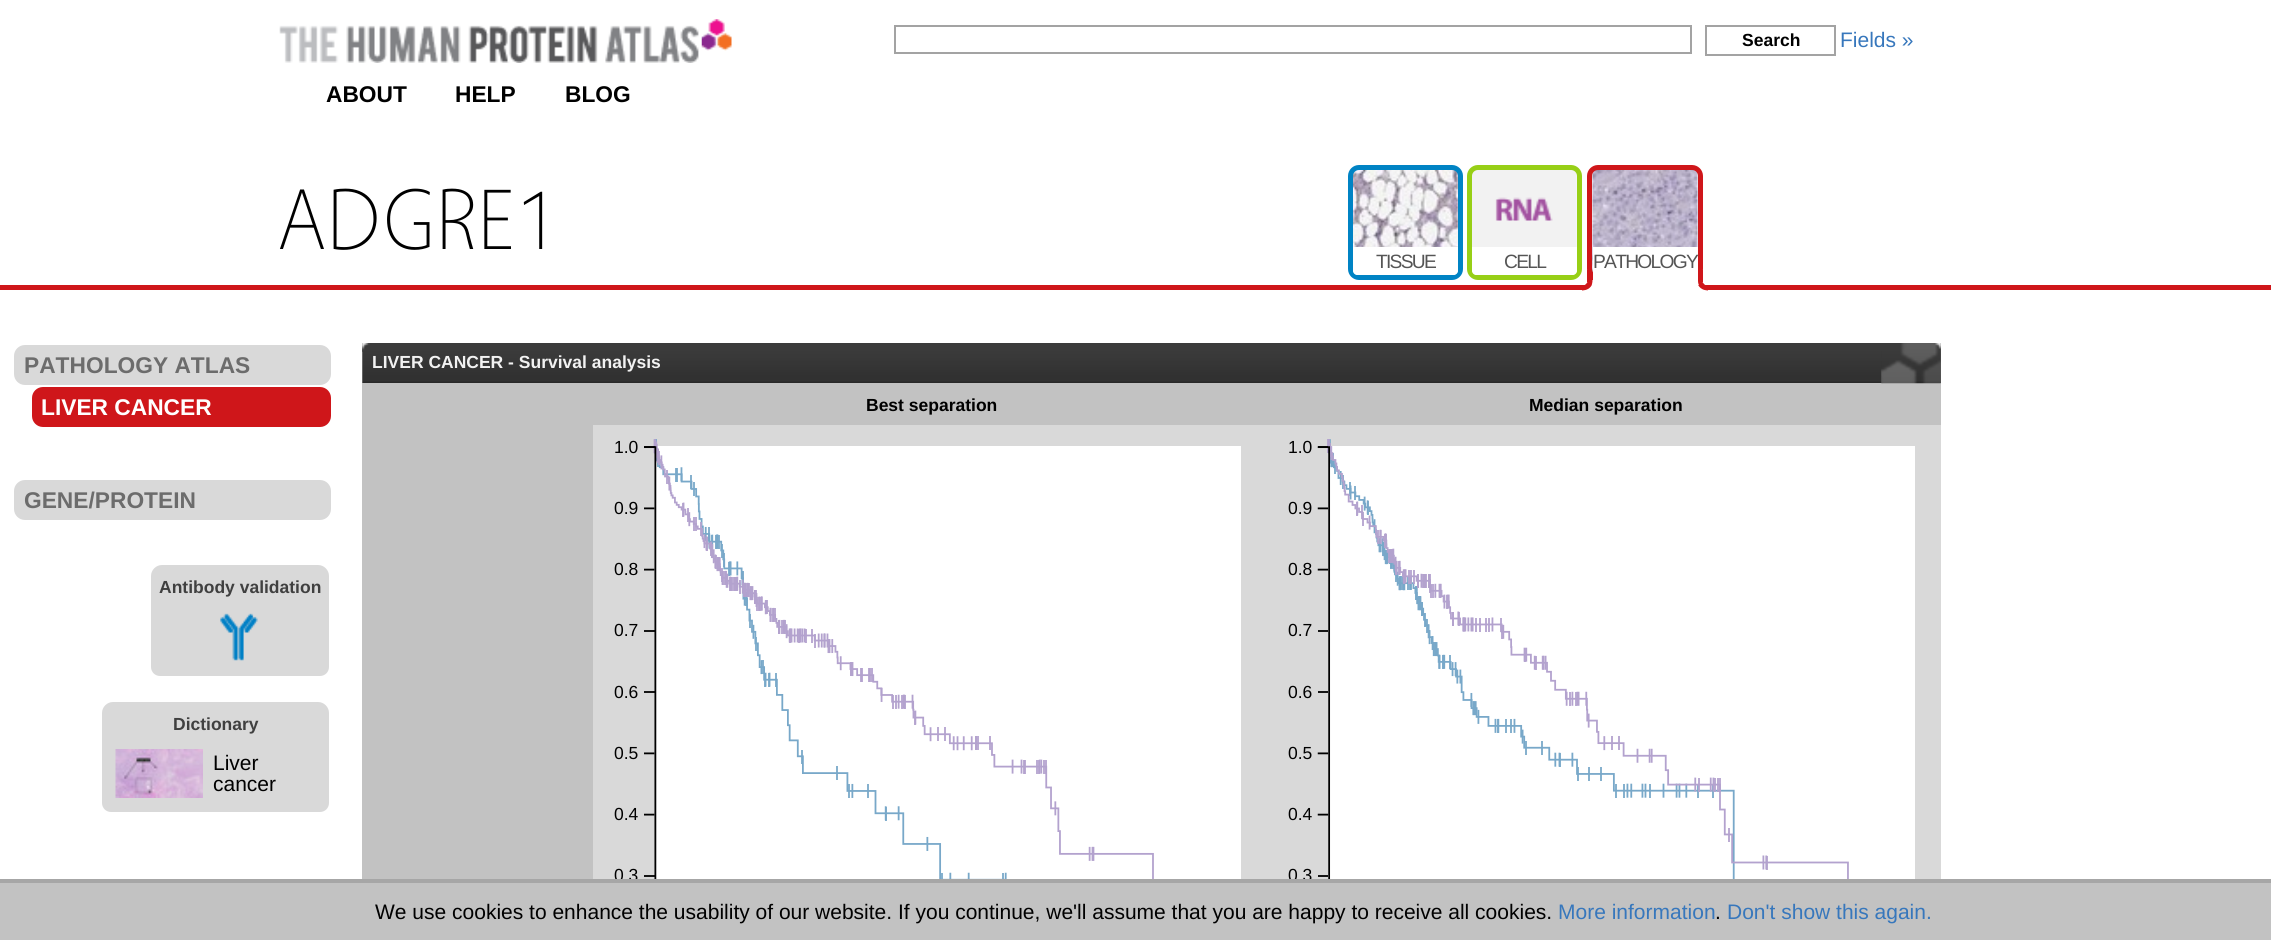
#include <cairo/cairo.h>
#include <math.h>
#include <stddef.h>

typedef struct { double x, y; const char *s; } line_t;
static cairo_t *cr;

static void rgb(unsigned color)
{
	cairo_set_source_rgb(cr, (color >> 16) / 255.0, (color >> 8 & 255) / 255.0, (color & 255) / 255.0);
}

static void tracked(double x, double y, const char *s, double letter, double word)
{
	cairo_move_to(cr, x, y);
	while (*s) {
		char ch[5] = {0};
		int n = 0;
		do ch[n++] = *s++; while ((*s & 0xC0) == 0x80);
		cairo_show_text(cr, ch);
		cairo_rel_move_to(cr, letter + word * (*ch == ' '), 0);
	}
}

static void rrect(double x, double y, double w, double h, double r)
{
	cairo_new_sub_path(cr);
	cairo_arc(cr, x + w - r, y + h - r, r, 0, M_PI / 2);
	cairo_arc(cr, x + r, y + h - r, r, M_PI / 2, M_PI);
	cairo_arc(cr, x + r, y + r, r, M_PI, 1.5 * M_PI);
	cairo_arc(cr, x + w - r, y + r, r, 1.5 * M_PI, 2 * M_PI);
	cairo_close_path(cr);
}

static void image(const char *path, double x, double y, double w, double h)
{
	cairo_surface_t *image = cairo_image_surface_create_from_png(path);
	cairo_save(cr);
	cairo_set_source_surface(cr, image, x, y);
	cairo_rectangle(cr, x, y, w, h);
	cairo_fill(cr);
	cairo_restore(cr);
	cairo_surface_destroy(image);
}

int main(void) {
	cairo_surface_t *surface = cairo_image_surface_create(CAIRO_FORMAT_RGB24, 2271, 940);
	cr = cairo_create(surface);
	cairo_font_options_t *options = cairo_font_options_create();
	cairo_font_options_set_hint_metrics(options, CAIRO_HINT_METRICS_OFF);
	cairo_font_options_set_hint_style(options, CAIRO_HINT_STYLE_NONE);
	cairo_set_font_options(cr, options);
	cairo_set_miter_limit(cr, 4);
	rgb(0xffffff);
	cairo_paint(cr);
	image("img/1.png", 279, 25, 420, 38);
	image("img/2.png", 701, 19, 31, 32);
	cairo_rectangle(cr, 895, 26, 796, 27);
	rgb(0xa3a3a3);
	cairo_stroke(cr);
	cairo_rectangle(cr, 1706, 26, 129, 29);
	cairo_stroke(cr);
	image("img/3.png", 1353, 170, 105, 105);
	rrect(1350.5, 167.5, 110, 110, 8.5);
	rgb(0x0083c4);
	cairo_set_line_width(cr, 5);
	cairo_stroke(cr);
	rgb(0xffffff);
	cairo_new_path(cr);
	cairo_move_to(cr, 1353, 247);
	cairo_line_to(cr, 1458, 247);
	cairo_line_to(cr, 1458, 271);
	cairo_curve_to(cr, 1458, 273, 1456, 275, 1454, 275);
	cairo_line_to(cr, 1357, 275);
	cairo_curve_to(cr, 1355, 275, 1353, 273, 1353, 271);
	cairo_close_path(cr);
	cairo_fill(cr);
	image("img/4.png", 1472, 170, 105, 105);
	rrect(1469.5, 167.5, 110, 110, 8.5);
	rgb(0x97cf16);
	cairo_stroke(cr);
	rgb(0xffffff);
	cairo_new_path(cr);
	cairo_move_to(cr, 1472, 247);
	cairo_line_to(cr, 1577, 247);
	cairo_line_to(cr, 1577, 271);
	cairo_curve_to(cr, 1577, 273, 1575, 275, 1573, 275);
	cairo_line_to(cr, 1476, 275);
	cairo_curve_to(cr, 1474, 275, 1472, 273, 1472, 271);
	cairo_close_path(cr);
	cairo_fill(cr);
	image("img/5.png", 1592, 170, 106, 103);
	rrect(1589.5, 167.5, 111, 110, 8.5);
	rgb(0xcf161a);
	cairo_stroke(cr);
	cairo_rectangle(cr, 0, 285, 2271, 5);
	cairo_fill(cr);
	rgb(0xffffff);
	cairo_rectangle(cr, 1593, 247, 105, 43);
	cairo_fill(cr);
	rgb(0xcf161a);
	cairo_new_path(cr);
	cairo_move_to(cr, 1582, 286.5);
	cairo_line_to(cr, 1582, 291);
	cairo_curve_to(cr, 1588, 291, 1593, 286, 1593, 280);
	cairo_line_to(cr, 1593, 273);
	cairo_line_to(cr, 1589, 273);
	cairo_curve_to(cr, 1589, 279, 1588.5, 284, 1582, 286.5);
	cairo_close_path(cr);
	cairo_fill(cr);
	cairo_rectangle(cr, 1587, 270, 2, 12);
	cairo_fill(cr);
	rgb(0xffffff);
	cairo_set_fill_rule(cr, CAIRO_FILL_RULE_EVEN_ODD);
	cairo_new_path(cr);
	cairo_move_to(cr, 1582, 280);
	cairo_line_to(cr, 1598, 280);
	cairo_line_to(cr, 1598, 282);
	cairo_curve_to(cr, 1598, 290.5, 1590.5, 297.5, 1582, 297.5);
	cairo_close_path(cr);
	cairo_move_to(cr, 1582, 280);
	cairo_line_to(cr, 1592.5, 280);
	cairo_line_to(cr, 1592.5, 282);
	cairo_curve_to(cr, 1592.5, 286.5, 1588, 290.5, 1582, 290.5);
	cairo_close_path(cr);
	cairo_fill(cr);
	rgb(0xcf161a);
	cairo_set_fill_rule(cr, CAIRO_FILL_RULE_WINDING);
	cairo_new_path(cr);
	cairo_move_to(cr, 1698, 273);
	cairo_line_to(cr, 1698, 281);
	cairo_curve_to(cr, 1698, 286.5, 1702.5, 291, 1708, 291);
	cairo_line_to(cr, 1708, 286.5);
	cairo_curve_to(cr, 1701.5, 284, 1701, 279, 1701, 273);
	cairo_close_path(cr);
	cairo_fill(cr);
	cairo_rectangle(cr, 1701, 270, 2, 12);
	cairo_fill(cr);
	rgb(0xffffff);
	cairo_set_fill_rule(cr, CAIRO_FILL_RULE_EVEN_ODD);
	cairo_new_path(cr);
	cairo_move_to(cr, 1692, 280);
	cairo_line_to(cr, 1708, 280);
	cairo_line_to(cr, 1708, 297.5);
	cairo_curve_to(cr, 1699.5, 297.5, 1692, 290.5, 1692, 282);
	cairo_close_path(cr);
	cairo_move_to(cr, 1697.5, 280);
	cairo_line_to(cr, 1708, 280);
	cairo_line_to(cr, 1708, 290.5);
	cairo_curve_to(cr, 1702, 290.5, 1697.5, 286.5, 1697.5, 282);
	cairo_close_path(cr);
	cairo_fill(cr);
	rgb(0xd9d9d9);
	rrect(14, 345, 317, 40, 11);
	cairo_fill(cr);
	rgb(0xcf161a);
	rrect(32, 387, 299, 40, 11);
	cairo_fill(cr);
	rgb(0xd9d9d9);
	rrect(14, 480, 317, 40, 11);
	cairo_fill(cr);
	cairo_new_path(cr);
	cairo_move_to(cr, 162, 565);
	cairo_line_to(cr, 318, 565);
	cairo_curve_to(cr, 324, 565, 329, 570, 329, 576);
	cairo_line_to(cr, 329, 607);
	cairo_line_to(cr, 151, 607);
	cairo_line_to(cr, 151, 576);
	cairo_curve_to(cr, 151, 570, 156, 565, 162, 565);
	cairo_close_path(cr);
	cairo_fill(cr);
	cairo_rectangle(cr, 151, 607, 178, 60);
	cairo_fill(cr);
	image("img/6.png", 220, 613, 38, 48);
	cairo_new_path(cr);
	cairo_move_to(cr, 151, 667);
	cairo_line_to(cr, 329, 667);
	cairo_curve_to(cr, 329, 672, 325, 676, 320, 676);
	cairo_line_to(cr, 160, 676);
	cairo_curve_to(cr, 155, 676, 151, 672, 151, 667);
	cairo_close_path(cr);
	cairo_fill(cr);
	cairo_new_path(cr);
	cairo_move_to(cr, 113, 702);
	cairo_line_to(cr, 318, 702);
	cairo_curve_to(cr, 324, 702, 329, 707, 329, 713);
	cairo_line_to(cr, 329, 744);
	cairo_line_to(cr, 102, 744);
	cairo_line_to(cr, 102, 713);
	cairo_curve_to(cr, 102, 707, 107, 702, 113, 702);
	cairo_close_path(cr);
	cairo_fill(cr);
	cairo_rectangle(cr, 102, 744, 227, 59);
	cairo_fill(cr);
	image("img/7.png", 115, 749, 88, 49);
	cairo_new_path(cr);
	cairo_move_to(cr, 102, 803);
	cairo_line_to(cr, 329, 803);
	cairo_curve_to(cr, 329, 808, 325, 812, 320, 812);
	cairo_line_to(cr, 111, 812);
	cairo_curve_to(cr, 106, 812, 102, 808, 102, 803);
	cairo_close_path(cr);
	cairo_fill(cr);
	image("img/8.png", 362, 343, 1579, 40);
	image("img/9.png", 362, 343, 8, 9);
	rgb(0xc2c2c2);
	cairo_rectangle(cr, 362, 383, 1579, 42);
	cairo_fill(cr);
	image("img/10.png", 1881, 343, 60, 41);
	rgb(0xd9d9d9);
	cairo_rectangle(cr, 593, 425, 1348, 454);
	cairo_fill(cr);
	rgb(0xc2c2c2);
	cairo_rectangle(cr, 362, 425, 231, 454);
	cairo_fill(cr);
	image("img/11.png", 644, 439, 597, 440);
	image("img/12.png", 1317, 439, 598, 440);
	cairo_rectangle(cr, 0, 883, 2271, 57);
	cairo_fill(cr);
	cairo_select_font_face(cr, "Liberation Sans", CAIRO_FONT_SLANT_NORMAL, CAIRO_FONT_WEIGHT_BOLD);
	cairo_set_font_size(cr, 17.5);
	rgb(0x000000);
	cairo_move_to(cr, 1742, 46);
	cairo_show_text(cr, "Search");
	cairo_select_font_face(cr, "Liberation Sans", CAIRO_FONT_SLANT_NORMAL, CAIRO_FONT_WEIGHT_NORMAL);
	cairo_set_font_size(cr, 21);
	rgb(0x3777bc);
	cairo_move_to(cr, 1840, 47);
	cairo_show_text(cr, "Fields »");
	cairo_select_font_face(cr, "Liberation Sans", CAIRO_FONT_SLANT_NORMAL, CAIRO_FONT_WEIGHT_BOLD);
	cairo_set_font_size(cr, 22.75);
	rgb(0x000000);
	{
		static const line_t items[] = {
			{326, 102, "ABOUT"},
			{455, 102, "HELP"},
			{565, 102, "BLOG"},
		};
		for (size_t i = 0; i < sizeof items / sizeof *items; i++) {
			cairo_move_to(cr, items[i].x, items[i].y);
			cairo_show_text(cr, items[i].s);
		}
	}
	cairo_select_font_face(cr, "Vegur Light", CAIRO_FONT_SLANT_NORMAL, CAIRO_FONT_WEIGHT_NORMAL);
	cairo_set_font_size(cr, 86.5);
	cairo_move_to(cr, 278, 249);
	cairo_show_text(cr, "ADGRE1");
	cairo_select_font_face(cr, "Liberation Sans", CAIRO_FONT_SLANT_NORMAL, CAIRO_FONT_WEIGHT_NORMAL);
	cairo_set_font_size(cr, 19.25);
	rgb(0x555555);
	{
		static const line_t items[] = {
			{1376, 268, "TISSUE"},
			{1504, 268, "CELL"},
			{1593, 268, "PATHOLOGY"},
		};
		for (size_t i = 0; i < sizeof items / sizeof *items; i++) {
			tracked(items[i].x, items[i].y, items[i].s, -1.75, 0);
		}
	}
	cairo_select_font_face(cr, "Liberation Sans", CAIRO_FONT_SLANT_NORMAL, CAIRO_FONT_WEIGHT_BOLD);
	cairo_set_font_size(cr, 22.75);
	rgb(0x6c6c6c);
	cairo_move_to(cr, 24, 373);
	cairo_show_text(cr, "PATHOLOGY ATLAS");
	rgb(0xffffff);
	cairo_move_to(cr, 41, 415);
	cairo_show_text(cr, "LIVER CANCER");
	rgb(0x6c6c6c);
	cairo_move_to(cr, 24, 508);
	cairo_show_text(cr, "GENE/PROTEIN");
	cairo_set_font_size(cr, 17.5);
	rgb(0x404040);
	cairo_move_to(cr, 159, 593);
	cairo_show_text(cr, "Antibody validation");
	cairo_move_to(cr, 173, 730);
	cairo_show_text(cr, "Dictionary");
	cairo_select_font_face(cr, "Liberation Sans", CAIRO_FONT_SLANT_NORMAL, CAIRO_FONT_WEIGHT_NORMAL);
	cairo_set_font_size(cr, 21);
	rgb(0x000000);
	cairo_move_to(cr, 213, 770);
	cairo_show_text(cr, "Liver");
	cairo_move_to(cr, 213, 791);
	cairo_show_text(cr, "cancer");
	cairo_select_font_face(cr, "Liberation Sans", CAIRO_FONT_SLANT_NORMAL, CAIRO_FONT_WEIGHT_BOLD);
	cairo_set_font_size(cr, 17.5);
	rgb(0xf2f2f2);
	cairo_move_to(cr, 372, 368);
	cairo_show_text(cr, "LIVER CANCER - Survival analysis");
	rgb(0x000000);
	cairo_move_to(cr, 866, 411);
	cairo_show_text(cr, "Best separation");
	cairo_move_to(cr, 1529, 411);
	cairo_show_text(cr, "Median separation");
	cairo_select_font_face(cr, "Liberation Sans", CAIRO_FONT_SLANT_NORMAL, CAIRO_FONT_WEIGHT_NORMAL);
	{
		static const line_t items[] = {
			{614, 453, "1.0"},
			{614, 514, "0.9"},
			{614, 575, "0.8"},
			{614, 636, "0.7"},
			{614, 698, "0.6"},
			{614, 759, "0.5"},
			{614, 820, "0.4"},
			{614, 881, "0.3"},
			{1288, 453, "1.0"},
			{1288, 514, "0.9"},
			{1288, 575, "0.8"},
			{1288, 636, "0.7"},
			{1288, 698, "0.6"},
			{1288, 759, "0.5"},
			{1288, 820, "0.4"},
			{1288, 881, "0.3"},
		};
		for (size_t i = 0; i < sizeof items / sizeof *items; i++) {
			cairo_move_to(cr, items[i].x, items[i].y);
			cairo_show_text(cr, items[i].s);
		}
	}
	rgb(0xa6a6a6);
	cairo_rectangle(cr, 0, 879, 2271, 4);
	cairo_fill(cr);
	cairo_set_font_size(cr, 21);
	rgb(0x000000);
	cairo_move_to(cr, 375, 919);
	cairo_show_text(cr, "We use cookies to enhance the usability of our website. If you continue, we'll assume that you are happy to receive all cookies.");
	rgb(0x3777bc);
	cairo_move_to(cr, 1558, 919);
	cairo_show_text(cr, "More information");
	rgb(0x000000);
	cairo_move_to(cr, 1715, 919);
	cairo_show_text(cr, ".");
	rgb(0x3777bc);
	cairo_move_to(cr, 1727, 919);
	cairo_show_text(cr, "Don't show this again.");
	cairo_surface_write_to_png(surface, "page.png");
	cairo_font_options_destroy(options);
	cairo_destroy(cr);
	cairo_surface_destroy(surface);
	return 0;
}
